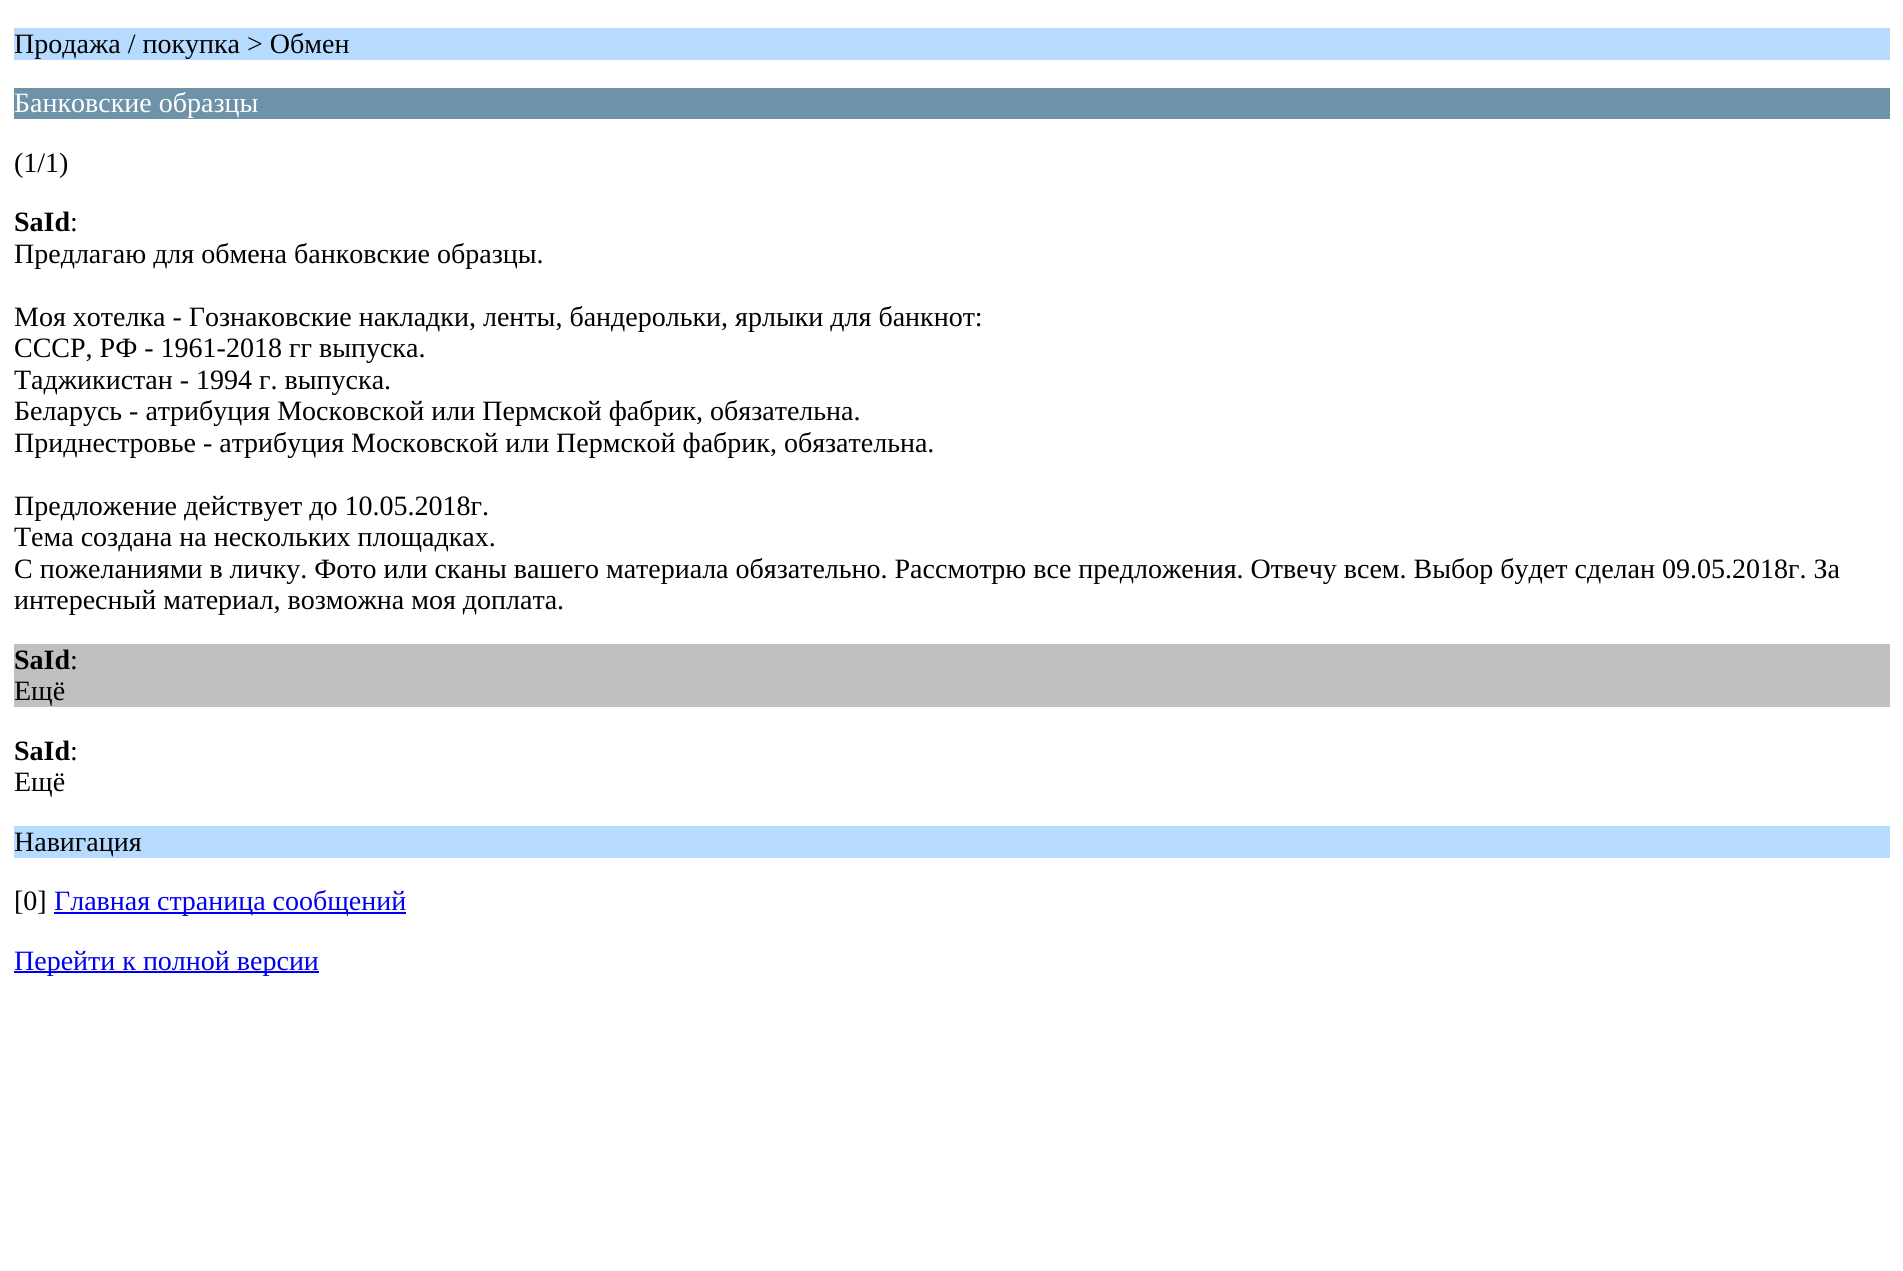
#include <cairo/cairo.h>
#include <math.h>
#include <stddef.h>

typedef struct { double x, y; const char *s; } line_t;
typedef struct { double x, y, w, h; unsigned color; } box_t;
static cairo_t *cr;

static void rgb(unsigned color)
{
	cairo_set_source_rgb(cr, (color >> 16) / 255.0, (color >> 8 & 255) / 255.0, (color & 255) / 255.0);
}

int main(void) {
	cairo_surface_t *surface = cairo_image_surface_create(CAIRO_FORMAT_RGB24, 1903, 1271);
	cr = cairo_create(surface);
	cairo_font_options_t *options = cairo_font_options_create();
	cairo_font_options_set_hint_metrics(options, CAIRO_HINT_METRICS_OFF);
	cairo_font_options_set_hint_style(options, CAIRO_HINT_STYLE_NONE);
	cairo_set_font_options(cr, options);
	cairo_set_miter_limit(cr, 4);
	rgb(0xffffff);
	cairo_paint(cr);
	{
		static const box_t items[] = {
			{14, 28, 1876, 32, 0xb6dbff},
			{14, 88, 1876, 31, 0x6d92aa},
			{14, 644, 1876, 63, 0xc0c0c0},
			{14, 826, 1876, 32, 0xb6dbff},
			{54, 912, 352, 2, 0x0000ee},
			{14, 971, 305, 2, 0x0000ee},
		};
		for (size_t i = 0; i < sizeof items / sizeof *items; i++) {
			rgb(items[i].color);
			cairo_rectangle(cr, items[i].x, items[i].y, items[i].w, items[i].h);
			cairo_fill(cr);
		}
	}
	cairo_select_font_face(cr, "Liberation Serif", CAIRO_FONT_SLANT_NORMAL, CAIRO_FONT_WEIGHT_NORMAL);
	cairo_set_font_size(cr, 28);
	rgb(0x000000);
	cairo_move_to(cr, 14, 53);
	cairo_show_text(cr, "Продажа / покупка > Обмен");
	rgb(0xffffff);
	cairo_move_to(cr, 14, 112);
	cairo_show_text(cr, "Банковские образцы");
	rgb(0x000000);
	cairo_move_to(cr, 14, 172);
	cairo_show_text(cr, "(1/1)");
	cairo_select_font_face(cr, "Liberation Serif", CAIRO_FONT_SLANT_NORMAL, CAIRO_FONT_WEIGHT_BOLD);
	cairo_move_to(cr, 14, 231);
	cairo_show_text(cr, "SaId");
	cairo_select_font_face(cr, "Liberation Serif", CAIRO_FONT_SLANT_NORMAL, CAIRO_FONT_WEIGHT_NORMAL);
	{
		static const line_t items[] = {
			{70, 231, ":"},
			{14, 263, "Предлагаю для обмена банковские образцы."},
			{14, 326, "Моя хотелка - Гознаковские накладки, ленты, бандерольки, ярлыки для банкнот:"},
			{14, 357, "CCCР, РФ - 1961-2018 гг выпуска."},
			{14, 389, "Таджикистан - 1994 г. выпуска."},
			{14, 420, "Беларусь - атрибуция Московской или Пермской фабрик, обязательна."},
			{14, 452, "Приднестровье - атрибуция Московской или Пермской фабрик, обязательна."},
			{14, 515, "Предложение действует до 10.05.2018г."},
			{14, 546, "Тема создана на нескольких площадках."},
			{14, 578, "С пожеланиями в личку. Фото или сканы вашего материала обязательно. Рассмотрю все предложения. Отвечу всем. Выбор будет сделан 09.05.2018г. За"},
			{14, 609, "интересный материал, возможна моя доплата."},
		};
		for (size_t i = 0; i < sizeof items / sizeof *items; i++) {
			cairo_move_to(cr, items[i].x, items[i].y);
			cairo_show_text(cr, items[i].s);
		}
	}
	cairo_select_font_face(cr, "Liberation Serif", CAIRO_FONT_SLANT_NORMAL, CAIRO_FONT_WEIGHT_BOLD);
	cairo_move_to(cr, 14, 669);
	cairo_show_text(cr, "SaId");
	cairo_select_font_face(cr, "Liberation Serif", CAIRO_FONT_SLANT_NORMAL, CAIRO_FONT_WEIGHT_NORMAL);
	cairo_move_to(cr, 70, 669);
	cairo_show_text(cr, ":");
	cairo_move_to(cr, 14, 700);
	cairo_show_text(cr, "Ещё");
	cairo_select_font_face(cr, "Liberation Serif", CAIRO_FONT_SLANT_NORMAL, CAIRO_FONT_WEIGHT_BOLD);
	cairo_move_to(cr, 14, 760);
	cairo_show_text(cr, "SaId");
	cairo_select_font_face(cr, "Liberation Serif", CAIRO_FONT_SLANT_NORMAL, CAIRO_FONT_WEIGHT_NORMAL);
	{
		static const line_t items[] = {
			{70, 760, ":"},
			{14, 791, "Ещё"},
			{14, 851, "Навигация"},
			{14, 910, "[0]"},
		};
		for (size_t i = 0; i < sizeof items / sizeof *items; i++) {
			cairo_move_to(cr, items[i].x, items[i].y);
			cairo_show_text(cr, items[i].s);
		}
	}
	rgb(0x0000ee);
	cairo_move_to(cr, 54, 910);
	cairo_show_text(cr, "Главная страница сообщений");
	cairo_move_to(cr, 14, 970);
	cairo_show_text(cr, "Перейти к полной версии");
	cairo_surface_write_to_png(surface, "page.png");
	cairo_font_options_destroy(options);
	cairo_destroy(cr);
	cairo_surface_destroy(surface);
	return 0;
}
